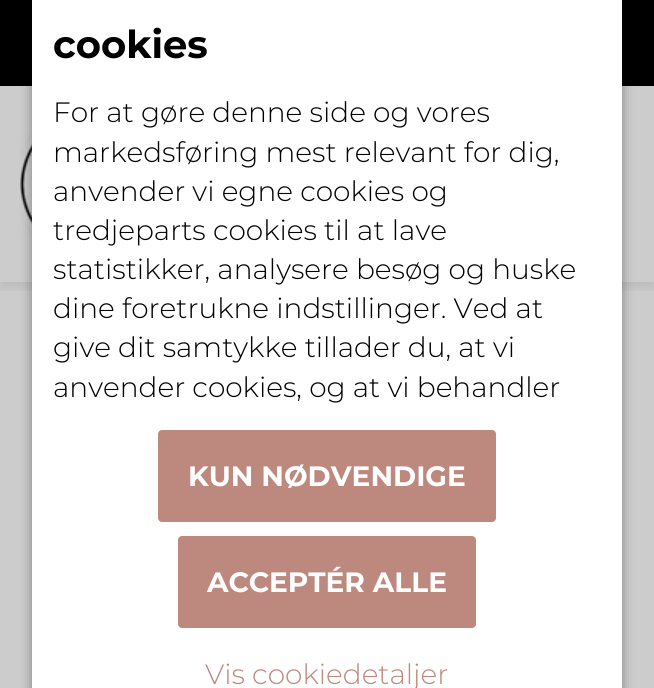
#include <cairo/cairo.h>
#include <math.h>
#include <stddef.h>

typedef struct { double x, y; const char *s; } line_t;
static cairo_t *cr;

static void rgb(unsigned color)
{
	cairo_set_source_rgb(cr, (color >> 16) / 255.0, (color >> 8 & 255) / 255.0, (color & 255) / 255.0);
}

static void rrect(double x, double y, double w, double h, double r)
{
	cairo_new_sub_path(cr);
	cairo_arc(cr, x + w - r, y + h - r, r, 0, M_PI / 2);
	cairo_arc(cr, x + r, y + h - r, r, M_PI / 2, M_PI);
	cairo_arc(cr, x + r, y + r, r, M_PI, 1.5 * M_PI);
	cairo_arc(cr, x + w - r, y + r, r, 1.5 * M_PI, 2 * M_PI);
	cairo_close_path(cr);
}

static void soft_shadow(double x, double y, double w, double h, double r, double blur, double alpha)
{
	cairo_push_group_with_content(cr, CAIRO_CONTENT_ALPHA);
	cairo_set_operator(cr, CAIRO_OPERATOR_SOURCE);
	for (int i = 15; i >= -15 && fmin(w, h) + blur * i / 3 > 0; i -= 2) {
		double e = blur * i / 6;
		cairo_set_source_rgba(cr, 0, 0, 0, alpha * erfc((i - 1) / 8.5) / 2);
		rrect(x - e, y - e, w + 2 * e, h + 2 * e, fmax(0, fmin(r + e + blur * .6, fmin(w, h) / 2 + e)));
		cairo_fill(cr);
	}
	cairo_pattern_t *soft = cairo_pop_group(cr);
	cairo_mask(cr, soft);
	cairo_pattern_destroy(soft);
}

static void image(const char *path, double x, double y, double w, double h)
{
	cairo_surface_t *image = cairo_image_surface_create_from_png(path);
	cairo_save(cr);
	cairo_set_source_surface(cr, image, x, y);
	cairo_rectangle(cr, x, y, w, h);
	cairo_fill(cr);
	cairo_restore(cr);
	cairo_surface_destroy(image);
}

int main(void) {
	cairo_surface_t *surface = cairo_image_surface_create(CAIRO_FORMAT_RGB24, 654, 688);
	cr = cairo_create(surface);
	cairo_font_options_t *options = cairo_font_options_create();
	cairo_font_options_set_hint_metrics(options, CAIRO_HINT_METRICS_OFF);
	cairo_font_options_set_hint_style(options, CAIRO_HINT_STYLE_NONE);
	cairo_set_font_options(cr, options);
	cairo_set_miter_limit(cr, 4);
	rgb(0xcccccc);
	cairo_paint(cr);
	rgb(0x000000);
	cairo_rectangle(cr, 0, 0, 654, 86);
	cairo_fill(cr);
	cairo_save(cr);
	cairo_rectangle(cr, 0, 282, 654, 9);
	cairo_clip(cr);
	rgb(0x000000);
	soft_shadow(0, 92, 654, 196, 0, 5, 0.08);
	cairo_restore(cr);
	image("img/1.png", 20, 86, 12, 196);
	rgb(0x000000);
	soft_shadow(32, -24, 590, 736, 6, 6, 0.23);
	soft_shadow(32, -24, 590, 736, 6, 6, 0.16);
	rgb(0xffffff);
	cairo_rectangle(cr, 32, 0, 590, 688);
	cairo_fill(cr);
	rgb(0xbd897f);
	rrect(159, 431, 336, 90, 3);
	cairo_fill_preserve(cr);
	cairo_stroke(cr);
	rrect(179, 537, 296, 90, 3);
	cairo_fill_preserve(cr);
	cairo_stroke(cr);
	cairo_select_font_face(cr, "Montserrat", CAIRO_FONT_SLANT_NORMAL, CAIRO_FONT_WEIGHT_BOLD);
	cairo_set_font_size(cr, 38.5);
	rgb(0x000000);
	cairo_move_to(cr, 53, 58);
	cairo_show_text(cr, "cookies");
	cairo_select_font_face(cr, "Montserrat Light", CAIRO_FONT_SLANT_NORMAL, CAIRO_FONT_WEIGHT_NORMAL);
	cairo_set_font_size(cr, 28);
	{
		static const line_t items[] = {
			{53, 122, "For at gøre denne side og vores"},
			{53, 162, "markedsføring mest relevant for dig,"},
			{53, 201, "anvender vi egne cookies og"},
			{53, 240, "tredjeparts cookies til at lave"},
			{53, 279, "statistikker, analysere besøg og huske"},
			{53, 318, "dine foretrukne indstillinger. Ved at"},
			{53, 357, "give dit samtykke tillader du, at vi"},
			{53, 397, "anvender cookies, og at vi behandler"},
		};
		for (size_t i = 0; i < sizeof items / sizeof *items; i++) {
			cairo_move_to(cr, items[i].x, items[i].y);
			cairo_show_text(cr, items[i].s);
		}
	}
	cairo_select_font_face(cr, "Montserrat", CAIRO_FONT_SLANT_NORMAL, CAIRO_FONT_WEIGHT_BOLD);
	rgb(0xffffff);
	cairo_move_to(cr, 188, 486);
	cairo_show_text(cr, "KUN NØDVENDIGE");
	cairo_move_to(cr, 207, 592);
	cairo_show_text(cr, "ACCEPTÉR ALLE");
	cairo_select_font_face(cr, "Montserrat Light", CAIRO_FONT_SLANT_NORMAL, CAIRO_FONT_WEIGHT_NORMAL);
	rgb(0xbd897f);
	cairo_move_to(cr, 205, 684);
	cairo_show_text(cr, "Vis cookiedetaljer");
	cairo_surface_write_to_png(surface, "page.png");
	cairo_font_options_destroy(options);
	cairo_destroy(cr);
	cairo_surface_destroy(surface);
	return 0;
}
